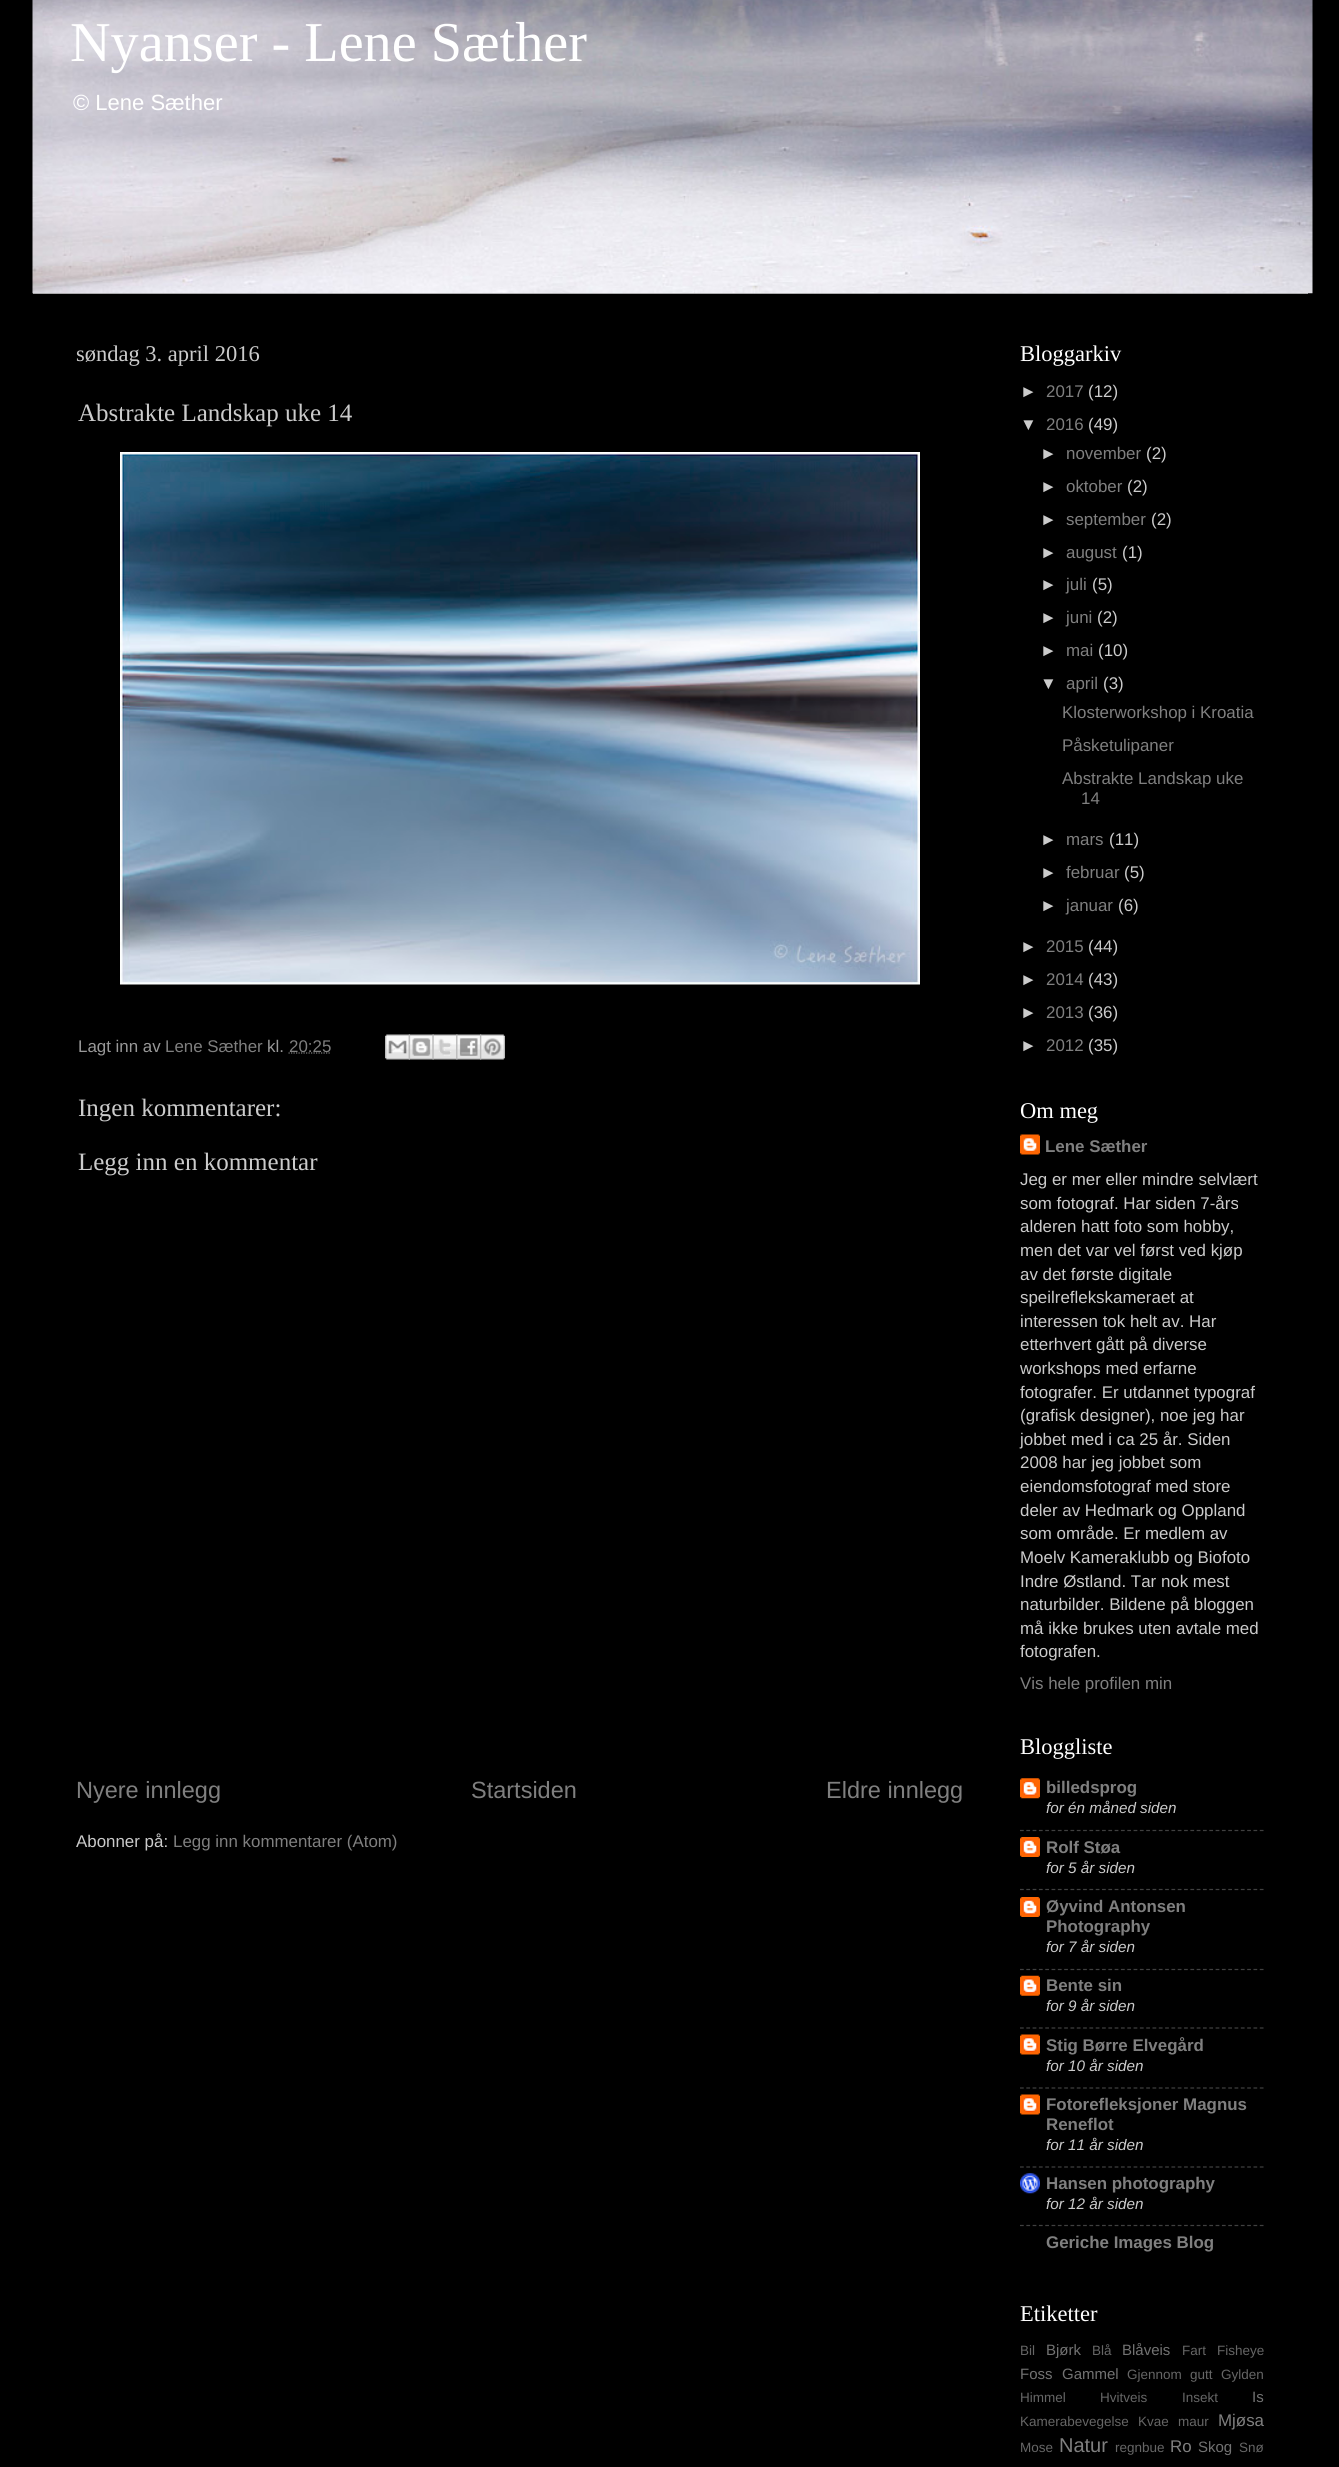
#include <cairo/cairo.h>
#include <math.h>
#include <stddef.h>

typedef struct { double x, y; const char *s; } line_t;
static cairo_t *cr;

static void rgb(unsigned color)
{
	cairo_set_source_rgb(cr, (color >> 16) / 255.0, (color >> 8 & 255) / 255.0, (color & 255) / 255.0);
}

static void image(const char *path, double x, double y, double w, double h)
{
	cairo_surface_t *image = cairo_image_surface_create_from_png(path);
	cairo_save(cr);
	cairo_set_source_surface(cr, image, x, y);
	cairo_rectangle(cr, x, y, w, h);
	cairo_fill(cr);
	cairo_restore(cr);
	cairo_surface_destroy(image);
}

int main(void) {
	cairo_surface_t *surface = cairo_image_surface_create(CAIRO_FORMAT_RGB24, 1339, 2467);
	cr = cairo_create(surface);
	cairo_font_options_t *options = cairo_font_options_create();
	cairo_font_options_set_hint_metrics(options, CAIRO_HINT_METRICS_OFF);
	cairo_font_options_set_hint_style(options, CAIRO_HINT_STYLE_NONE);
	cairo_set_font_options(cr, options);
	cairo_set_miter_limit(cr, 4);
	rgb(0x000000);
	cairo_paint(cr);
	rgb(0x989898);
	cairo_rectangle(cr, 33, 293, 1275, 1);
	cairo_fill(cr);
	image("img/1.png", 32, 0, 1281, 294);
	image("img/2.png", 120, 452, 800, 533);
	cairo_new_path(cr);
	cairo_move_to(cr, 288.5, 1053);
	cairo_line_to(cr, 331, 1053);
	rgb(0x7f7f7f);
	cairo_set_line_width(cr, 1.2);
	cairo_set_dash(cr, (double[]){1.25, 1.25}, 2, 0);
	cairo_stroke(cr);
	image("img/3.png", 385, 1034, 25, 26);
	image("img/4.png", 408, 1034, 26, 26);
	image("img/5.png", 432, 1034, 26, 26);
	image("img/6.png", 456, 1034, 26, 26);
	image("img/7.png", 480, 1034, 25, 26);
	image("img/8.png", 1020, 1134, 20, 21);
	image("img/9.png", 1020, 1778, 20, 21);
	cairo_new_path(cr);
	cairo_move_to(cr, 1020, 1830.5);
	cairo_line_to(cr, 1264, 1830.5);
	rgb(0x404040);
	cairo_set_dash(cr, (double[]){3.75, 2.56}, 2, 0);
	cairo_stroke(cr);
	image("img/10.png", 1020, 1837, 20, 20);
	cairo_new_path(cr);
	cairo_move_to(cr, 1020, 1889.5);
	cairo_line_to(cr, 1264, 1889.5);
	cairo_stroke(cr);
	image("img/10.png", 1020, 1897, 20, 20);
	cairo_new_path(cr);
	cairo_move_to(cr, 1020, 1969.5);
	cairo_line_to(cr, 1264, 1969.5);
	cairo_stroke(cr);
	image("img/11.png", 1020, 1975, 20, 21);
	cairo_new_path(cr);
	cairo_move_to(cr, 1020, 2028);
	cairo_line_to(cr, 1264, 2028);
	cairo_stroke(cr);
	image("img/12.png", 1020, 2034, 20, 21);
	cairo_new_path(cr);
	cairo_move_to(cr, 1020, 2088);
	cairo_line_to(cr, 1264, 2088);
	cairo_stroke(cr);
	image("img/12.png", 1020, 2094, 20, 21);
	cairo_new_path(cr);
	cairo_move_to(cr, 1020, 2167);
	cairo_line_to(cr, 1264, 2167);
	cairo_stroke(cr);
	image("img/13.png", 1020, 2173, 20, 21);
	cairo_new_path(cr);
	cairo_move_to(cr, 1020, 2225.5);
	cairo_line_to(cr, 1264, 2225.5);
	cairo_stroke(cr);
	cairo_select_font_face(cr, "Liberation Serif", CAIRO_FONT_SLANT_NORMAL, CAIRO_FONT_WEIGHT_NORMAL);
	cairo_set_font_size(cr, 56.25);
	rgb(0xffffff);
	cairo_move_to(cr, 70, 61);
	cairo_show_text(cr, "Nyanser - Lene Sæther");
	cairo_select_font_face(cr, "Liberation Sans", CAIRO_FONT_SLANT_NORMAL, CAIRO_FONT_WEIGHT_NORMAL);
	cairo_set_font_size(cr, 22);
	cairo_move_to(cr, 73, 110);
	cairo_show_text(cr, "© Lene Sæther");
	cairo_select_font_face(cr, "Liberation Serif", CAIRO_FONT_SLANT_NORMAL, CAIRO_FONT_WEIGHT_NORMAL);
	cairo_set_font_size(cr, 22.5);
	rgb(0xcbcbcb);
	cairo_move_to(cr, 76, 361);
	cairo_show_text(cr, "søndag 3. april 2016");
	cairo_set_font_size(cr, 25);
	cairo_move_to(cr, 78, 421);
	cairo_show_text(cr, "Abstrakte Landskap uke 14");
	cairo_select_font_face(cr, "Liberation Sans", CAIRO_FONT_SLANT_NORMAL, CAIRO_FONT_WEIGHT_NORMAL);
	cairo_set_font_size(cr, 16.9);
	rgb(0x989898);
	cairo_move_to(cr, 78, 1052);
	cairo_show_text(cr, "Lagt inn av");
	rgb(0x7f7f7f);
	cairo_move_to(cr, 165, 1052);
	cairo_show_text(cr, "Lene Sæther");
	rgb(0x989898);
	cairo_move_to(cr, 267, 1052);
	cairo_show_text(cr, "kl.");
	rgb(0x7f7f7f);
	cairo_move_to(cr, 289, 1052);
	cairo_show_text(cr, "20:25");
	cairo_select_font_face(cr, "Liberation Serif", CAIRO_FONT_SLANT_NORMAL, CAIRO_FONT_WEIGHT_NORMAL);
	cairo_set_font_size(cr, 25);
	rgb(0xcbcbcb);
	cairo_move_to(cr, 78, 1116);
	cairo_show_text(cr, "Ingen kommentarer:");
	cairo_move_to(cr, 78, 1170);
	cairo_show_text(cr, "Legg inn en kommentar");
	cairo_select_font_face(cr, "Liberation Sans", CAIRO_FONT_SLANT_NORMAL, CAIRO_FONT_WEIGHT_NORMAL);
	cairo_set_font_size(cr, 23.5);
	rgb(0x7f7f7f);
	{
		static const line_t items[] = {
			{76, 1798, "Nyere innlegg"},
			{471, 1798, "Startsiden"},
			{826, 1798, "Eldre innlegg"},
		};
		for (size_t i = 0; i < sizeof items / sizeof *items; i++) {
			cairo_move_to(cr, items[i].x, items[i].y);
			cairo_show_text(cr, items[i].s);
		}
	}
	cairo_set_font_size(cr, 16.9);
	rgb(0xcbcbcb);
	cairo_move_to(cr, 76, 1847);
	cairo_show_text(cr, "Abonner på:");
	rgb(0x7f7f7f);
	cairo_move_to(cr, 173, 1847);
	cairo_show_text(cr, "Legg inn kommentarer (Atom)");
	cairo_select_font_face(cr, "Liberation Serif", CAIRO_FONT_SLANT_NORMAL, CAIRO_FONT_WEIGHT_NORMAL);
	cairo_set_font_size(cr, 22.5);
	rgb(0xffffff);
	cairo_move_to(cr, 1020, 361);
	cairo_show_text(cr, "Bloggarkiv");
	cairo_select_font_face(cr, "Liberation Sans", CAIRO_FONT_SLANT_NORMAL, CAIRO_FONT_WEIGHT_NORMAL);
	cairo_set_font_size(cr, 16.9);
	rgb(0xcbcbcb);
	cairo_move_to(cr, 1020, 397);
	cairo_show_text(cr, "►");
	rgb(0x7f7f7f);
	cairo_move_to(cr, 1046, 397);
	cairo_show_text(cr, "2017");
	rgb(0xcbcbcb);
	cairo_move_to(cr, 1088, 397);
	cairo_show_text(cr, "(12)");
	cairo_move_to(cr, 1020, 430);
	cairo_show_text(cr, "▼");
	rgb(0x7f7f7f);
	cairo_move_to(cr, 1046, 430);
	cairo_show_text(cr, "2016");
	rgb(0xcbcbcb);
	cairo_move_to(cr, 1088, 430);
	cairo_show_text(cr, "(49)");
	cairo_move_to(cr, 1040, 459);
	cairo_show_text(cr, "►");
	rgb(0x7f7f7f);
	cairo_move_to(cr, 1066, 459);
	cairo_show_text(cr, "november");
	rgb(0xcbcbcb);
	cairo_move_to(cr, 1146, 459);
	cairo_show_text(cr, "(2)");
	cairo_move_to(cr, 1040, 492);
	cairo_show_text(cr, "►");
	rgb(0x7f7f7f);
	cairo_move_to(cr, 1066, 492);
	cairo_show_text(cr, "oktober");
	rgb(0xcbcbcb);
	cairo_move_to(cr, 1127, 492);
	cairo_show_text(cr, "(2)");
	cairo_move_to(cr, 1040, 525);
	cairo_show_text(cr, "►");
	rgb(0x7f7f7f);
	cairo_move_to(cr, 1066, 525);
	cairo_show_text(cr, "september");
	rgb(0xcbcbcb);
	cairo_move_to(cr, 1151, 525);
	cairo_show_text(cr, "(2)");
	cairo_move_to(cr, 1040, 558);
	cairo_show_text(cr, "►");
	rgb(0x7f7f7f);
	cairo_move_to(cr, 1066, 558);
	cairo_show_text(cr, "august");
	rgb(0xcbcbcb);
	cairo_move_to(cr, 1122, 558);
	cairo_show_text(cr, "(1)");
	cairo_move_to(cr, 1040, 590);
	cairo_show_text(cr, "►");
	rgb(0x7f7f7f);
	cairo_move_to(cr, 1066, 590);
	cairo_show_text(cr, "juli");
	rgb(0xcbcbcb);
	cairo_move_to(cr, 1092, 590);
	cairo_show_text(cr, "(5)");
	cairo_move_to(cr, 1040, 623);
	cairo_show_text(cr, "►");
	rgb(0x7f7f7f);
	cairo_move_to(cr, 1066, 623);
	cairo_show_text(cr, "juni");
	rgb(0xcbcbcb);
	cairo_move_to(cr, 1097, 623);
	cairo_show_text(cr, "(2)");
	cairo_move_to(cr, 1040, 656);
	cairo_show_text(cr, "►");
	rgb(0x7f7f7f);
	cairo_move_to(cr, 1066, 656);
	cairo_show_text(cr, "mai");
	rgb(0xcbcbcb);
	cairo_move_to(cr, 1098, 656);
	cairo_show_text(cr, "(10)");
	cairo_move_to(cr, 1040, 689);
	cairo_show_text(cr, "▼");
	rgb(0x7f7f7f);
	cairo_move_to(cr, 1066, 689);
	cairo_show_text(cr, "april");
	rgb(0xcbcbcb);
	cairo_move_to(cr, 1103, 689);
	cairo_show_text(cr, "(3)");
	rgb(0x7f7f7f);
	{
		static const line_t items[] = {
			{1062, 718, "Klosterworkshop i Kroatia"},
			{1062, 751, "Påsketulipaner"},
			{1062, 784, "Abstrakte Landskap uke"},
			{1081, 804, "14"},
		};
		for (size_t i = 0; i < sizeof items / sizeof *items; i++) {
			cairo_move_to(cr, items[i].x, items[i].y);
			cairo_show_text(cr, items[i].s);
		}
	}
	rgb(0xcbcbcb);
	cairo_move_to(cr, 1040, 845);
	cairo_show_text(cr, "►");
	rgb(0x7f7f7f);
	cairo_move_to(cr, 1066, 845);
	cairo_show_text(cr, "mars");
	rgb(0xcbcbcb);
	cairo_move_to(cr, 1109, 845);
	cairo_show_text(cr, "(11)");
	cairo_move_to(cr, 1040, 878);
	cairo_show_text(cr, "►");
	rgb(0x7f7f7f);
	cairo_move_to(cr, 1066, 878);
	cairo_show_text(cr, "februar");
	rgb(0xcbcbcb);
	cairo_move_to(cr, 1124, 878);
	cairo_show_text(cr, "(5)");
	cairo_move_to(cr, 1040, 911);
	cairo_show_text(cr, "►");
	rgb(0x7f7f7f);
	cairo_move_to(cr, 1066, 911);
	cairo_show_text(cr, "januar");
	rgb(0xcbcbcb);
	cairo_move_to(cr, 1118, 911);
	cairo_show_text(cr, "(6)");
	cairo_move_to(cr, 1020, 952);
	cairo_show_text(cr, "►");
	rgb(0x7f7f7f);
	cairo_move_to(cr, 1046, 952);
	cairo_show_text(cr, "2015");
	rgb(0xcbcbcb);
	cairo_move_to(cr, 1088, 952);
	cairo_show_text(cr, "(44)");
	cairo_move_to(cr, 1020, 985);
	cairo_show_text(cr, "►");
	rgb(0x7f7f7f);
	cairo_move_to(cr, 1046, 985);
	cairo_show_text(cr, "2014");
	rgb(0xcbcbcb);
	cairo_move_to(cr, 1088, 985);
	cairo_show_text(cr, "(43)");
	cairo_move_to(cr, 1020, 1018);
	cairo_show_text(cr, "►");
	rgb(0x7f7f7f);
	cairo_move_to(cr, 1046, 1018);
	cairo_show_text(cr, "2013");
	rgb(0xcbcbcb);
	cairo_move_to(cr, 1088, 1018);
	cairo_show_text(cr, "(36)");
	cairo_move_to(cr, 1020, 1051);
	cairo_show_text(cr, "►");
	rgb(0x7f7f7f);
	cairo_move_to(cr, 1046, 1051);
	cairo_show_text(cr, "2012");
	rgb(0xcbcbcb);
	cairo_move_to(cr, 1088, 1051);
	cairo_show_text(cr, "(35)");
	cairo_select_font_face(cr, "Liberation Serif", CAIRO_FONT_SLANT_NORMAL, CAIRO_FONT_WEIGHT_NORMAL);
	cairo_set_font_size(cr, 22.5);
	rgb(0xffffff);
	cairo_move_to(cr, 1020, 1118);
	cairo_show_text(cr, "Om meg");
	cairo_select_font_face(cr, "Liberation Sans", CAIRO_FONT_SLANT_NORMAL, CAIRO_FONT_WEIGHT_BOLD);
	cairo_set_font_size(cr, 16.9);
	rgb(0x7f7f7f);
	cairo_move_to(cr, 1045, 1152);
	cairo_show_text(cr, "Lene Sæther");
	cairo_select_font_face(cr, "Liberation Sans", CAIRO_FONT_SLANT_NORMAL, CAIRO_FONT_WEIGHT_NORMAL);
	rgb(0xcbcbcb);
	{
		static const line_t items[] = {
			{1020, 1185, "Jeg er mer eller mindre selvlært"},
			{1020, 1209, "som fotograf. Har siden 7-års"},
			{1020, 1232, "alderen hatt foto som hobby,"},
			{1020, 1256, "men det var vel først ved kjøp"},
			{1020, 1280, "av det første digitale"},
			{1020, 1303, "speilreflekskameraet at"},
			{1020, 1327, "interessen tok helt av. Har"},
			{1020, 1350, "etterhvert gått på diverse"},
			{1020, 1374, "workshops med erfarne"},
			{1020, 1398, "fotografer. Er utdannet typograf"},
			{1020, 1421, "(grafisk designer), noe jeg har"},
			{1020, 1445, "jobbet med i ca 25 år. Siden"},
			{1020, 1468, "2008 har jeg jobbet som"},
			{1020, 1492, "eiendomsfotograf med store"},
			{1020, 1516, "deler av Hedmark og Oppland"},
			{1020, 1539, "som område. Er medlem av"},
			{1020, 1563, "Moelv Kameraklubb og Biofoto"},
			{1020, 1587, "Indre Østland. Tar nok mest"},
			{1020, 1610, "naturbilder. Bildene på bloggen"},
			{1020, 1634, "må ikke brukes uten avtale med"},
			{1020, 1657, "fotografen."},
		};
		for (size_t i = 0; i < sizeof items / sizeof *items; i++) {
			cairo_move_to(cr, items[i].x, items[i].y);
			cairo_show_text(cr, items[i].s);
		}
	}
	rgb(0x7f7f7f);
	cairo_move_to(cr, 1020, 1689);
	cairo_show_text(cr, "Vis hele profilen min");
	cairo_select_font_face(cr, "Liberation Serif", CAIRO_FONT_SLANT_NORMAL, CAIRO_FONT_WEIGHT_NORMAL);
	cairo_set_font_size(cr, 22.5);
	rgb(0xffffff);
	cairo_move_to(cr, 1020, 1754);
	cairo_show_text(cr, "Bloggliste");
	cairo_select_font_face(cr, "Liberation Sans", CAIRO_FONT_SLANT_NORMAL, CAIRO_FONT_WEIGHT_BOLD);
	cairo_set_font_size(cr, 16.9);
	rgb(0x7f7f7f);
	cairo_move_to(cr, 1046, 1793);
	cairo_show_text(cr, "billedsprog");
	cairo_select_font_face(cr, "Liberation Sans", CAIRO_FONT_SLANT_ITALIC, CAIRO_FONT_WEIGHT_NORMAL);
	cairo_set_font_size(cr, 15.25);
	rgb(0xcbcbcb);
	cairo_move_to(cr, 1046, 1813);
	cairo_show_text(cr, "for én måned siden");
	cairo_select_font_face(cr, "Liberation Sans", CAIRO_FONT_SLANT_NORMAL, CAIRO_FONT_WEIGHT_BOLD);
	cairo_set_font_size(cr, 16.9);
	rgb(0x7f7f7f);
	cairo_move_to(cr, 1046, 1853);
	cairo_show_text(cr, "Rolf Støa");
	cairo_select_font_face(cr, "Liberation Sans", CAIRO_FONT_SLANT_ITALIC, CAIRO_FONT_WEIGHT_NORMAL);
	cairo_set_font_size(cr, 15.25);
	rgb(0xcbcbcb);
	cairo_move_to(cr, 1046, 1873);
	cairo_show_text(cr, "for 5 år siden");
	cairo_select_font_face(cr, "Liberation Sans", CAIRO_FONT_SLANT_NORMAL, CAIRO_FONT_WEIGHT_BOLD);
	cairo_set_font_size(cr, 16.9);
	rgb(0x7f7f7f);
	cairo_move_to(cr, 1046, 1912);
	cairo_show_text(cr, "Øyvind Antonsen");
	cairo_move_to(cr, 1046, 1932);
	cairo_show_text(cr, "Photography");
	cairo_select_font_face(cr, "Liberation Sans", CAIRO_FONT_SLANT_ITALIC, CAIRO_FONT_WEIGHT_NORMAL);
	cairo_set_font_size(cr, 15.25);
	rgb(0xcbcbcb);
	cairo_move_to(cr, 1046, 1952);
	cairo_show_text(cr, "for 7 år siden");
	cairo_select_font_face(cr, "Liberation Sans", CAIRO_FONT_SLANT_NORMAL, CAIRO_FONT_WEIGHT_BOLD);
	cairo_set_font_size(cr, 16.9);
	rgb(0x7f7f7f);
	cairo_move_to(cr, 1046, 1991);
	cairo_show_text(cr, "Bente sin");
	cairo_select_font_face(cr, "Liberation Sans", CAIRO_FONT_SLANT_ITALIC, CAIRO_FONT_WEIGHT_NORMAL);
	cairo_set_font_size(cr, 15.25);
	rgb(0xcbcbcb);
	cairo_move_to(cr, 1046, 2011);
	cairo_show_text(cr, "for 9 år siden");
	cairo_select_font_face(cr, "Liberation Sans", CAIRO_FONT_SLANT_NORMAL, CAIRO_FONT_WEIGHT_BOLD);
	cairo_set_font_size(cr, 16.9);
	rgb(0x7f7f7f);
	cairo_move_to(cr, 1046, 2051);
	cairo_show_text(cr, "Stig Børre Elvegård");
	cairo_select_font_face(cr, "Liberation Sans", CAIRO_FONT_SLANT_ITALIC, CAIRO_FONT_WEIGHT_NORMAL);
	cairo_set_font_size(cr, 15.25);
	rgb(0xcbcbcb);
	cairo_move_to(cr, 1046, 2071);
	cairo_show_text(cr, "for 10 år siden");
	cairo_select_font_face(cr, "Liberation Sans", CAIRO_FONT_SLANT_NORMAL, CAIRO_FONT_WEIGHT_BOLD);
	cairo_set_font_size(cr, 16.9);
	rgb(0x7f7f7f);
	cairo_move_to(cr, 1046, 2110);
	cairo_show_text(cr, "Fotorefleksjoner Magnus");
	cairo_move_to(cr, 1046, 2130);
	cairo_show_text(cr, "Reneflot");
	cairo_select_font_face(cr, "Liberation Sans", CAIRO_FONT_SLANT_ITALIC, CAIRO_FONT_WEIGHT_NORMAL);
	cairo_set_font_size(cr, 15.25);
	rgb(0xcbcbcb);
	cairo_move_to(cr, 1046, 2150);
	cairo_show_text(cr, "for 11 år siden");
	cairo_select_font_face(cr, "Liberation Sans", CAIRO_FONT_SLANT_NORMAL, CAIRO_FONT_WEIGHT_BOLD);
	cairo_set_font_size(cr, 16.9);
	rgb(0x7f7f7f);
	cairo_move_to(cr, 1046, 2189);
	cairo_show_text(cr, "Hansen photography");
	cairo_select_font_face(cr, "Liberation Sans", CAIRO_FONT_SLANT_ITALIC, CAIRO_FONT_WEIGHT_NORMAL);
	cairo_set_font_size(cr, 15.25);
	rgb(0xcbcbcb);
	cairo_move_to(cr, 1046, 2209);
	cairo_show_text(cr, "for 12 år siden");
	cairo_select_font_face(cr, "Liberation Sans", CAIRO_FONT_SLANT_NORMAL, CAIRO_FONT_WEIGHT_BOLD);
	cairo_set_font_size(cr, 16.9);
	rgb(0x7f7f7f);
	cairo_move_to(cr, 1046, 2248);
	cairo_show_text(cr, "Geriche Images Blog");
	cairo_select_font_face(cr, "Liberation Serif", CAIRO_FONT_SLANT_NORMAL, CAIRO_FONT_WEIGHT_NORMAL);
	cairo_set_font_size(cr, 22.5);
	rgb(0xffffff);
	cairo_move_to(cr, 1020, 2321);
	cairo_show_text(cr, "Etiketter");
	cairo_select_font_face(cr, "Liberation Sans", CAIRO_FONT_SLANT_NORMAL, CAIRO_FONT_WEIGHT_NORMAL);
	cairo_set_font_size(cr, 13.5);
	rgb(0x666666);
	cairo_move_to(cr, 1020, 2355);
	cairo_show_text(cr, "Bil");
	cairo_set_font_size(cr, 15);
	rgb(0x727272);
	cairo_move_to(cr, 1046, 2355);
	cairo_show_text(cr, "Bjørk");
	cairo_set_font_size(cr, 13.5);
	rgb(0x666666);
	cairo_move_to(cr, 1092, 2355);
	cairo_show_text(cr, "Blå");
	cairo_set_font_size(cr, 15);
	rgb(0x727272);
	cairo_move_to(cr, 1122, 2355);
	cairo_show_text(cr, "Blåveis");
	cairo_set_font_size(cr, 13.5);
	rgb(0x666666);
	cairo_move_to(cr, 1182, 2355);
	cairo_show_text(cr, "Fart");
	cairo_move_to(cr, 1217, 2355);
	cairo_show_text(cr, "Fisheye");
	cairo_set_font_size(cr, 15);
	rgb(0x727272);
	cairo_move_to(cr, 1020, 2379);
	cairo_show_text(cr, "Foss");
	cairo_move_to(cr, 1062, 2379);
	cairo_show_text(cr, "Gammel");
	cairo_set_font_size(cr, 13.5);
	rgb(0x666666);
	{
		static const line_t items[] = {
			{1127, 2379, "Gjennom"},
			{1190, 2379, "gutt"},
			{1221, 2379, "Gylden"},
			{1020, 2402, "Himmel"},
			{1100, 2402, "Hvitveis"},
			{1182, 2402, "Insekt"},
		};
		for (size_t i = 0; i < sizeof items / sizeof *items; i++) {
			cairo_move_to(cr, items[i].x, items[i].y);
			cairo_show_text(cr, items[i].s);
		}
	}
	cairo_set_font_size(cr, 15);
	rgb(0x727272);
	cairo_move_to(cr, 1252, 2402);
	cairo_show_text(cr, "Is");
	cairo_set_font_size(cr, 13.5);
	rgb(0x666666);
	{
		static const line_t items[] = {
			{1020, 2426, "Kamerabevegelse"},
			{1138, 2426, "Kvae"},
			{1178, 2426, "maur"},
		};
		for (size_t i = 0; i < sizeof items / sizeof *items; i++) {
			cairo_move_to(cr, items[i].x, items[i].y);
			cairo_show_text(cr, items[i].s);
		}
	}
	cairo_set_font_size(cr, 16.9);
	rgb(0x7f7f7f);
	cairo_move_to(cr, 1218, 2426);
	cairo_show_text(cr, "Mjøsa");
	cairo_set_font_size(cr, 13.5);
	rgb(0x666666);
	cairo_move_to(cr, 1020, 2452);
	cairo_show_text(cr, "Mose");
	cairo_set_font_size(cr, 20);
	rgb(0x7f7f7f);
	cairo_move_to(cr, 1059, 2452);
	cairo_show_text(cr, "Natur");
	cairo_set_font_size(cr, 13.5);
	rgb(0x666666);
	cairo_move_to(cr, 1115, 2452);
	cairo_show_text(cr, "regnbue");
	cairo_set_font_size(cr, 16.9);
	rgb(0x7f7f7f);
	cairo_move_to(cr, 1170, 2452);
	cairo_show_text(cr, "Ro");
	cairo_set_font_size(cr, 15);
	rgb(0x727272);
	cairo_move_to(cr, 1198, 2452);
	cairo_show_text(cr, "Skog");
	cairo_set_font_size(cr, 13.5);
	rgb(0x666666);
	cairo_move_to(cr, 1239, 2452);
	cairo_show_text(cr, "Snø");
	cairo_surface_write_to_png(surface, "page.png");
	cairo_font_options_destroy(options);
	cairo_destroy(cr);
	cairo_surface_destroy(surface);
	return 0;
}
